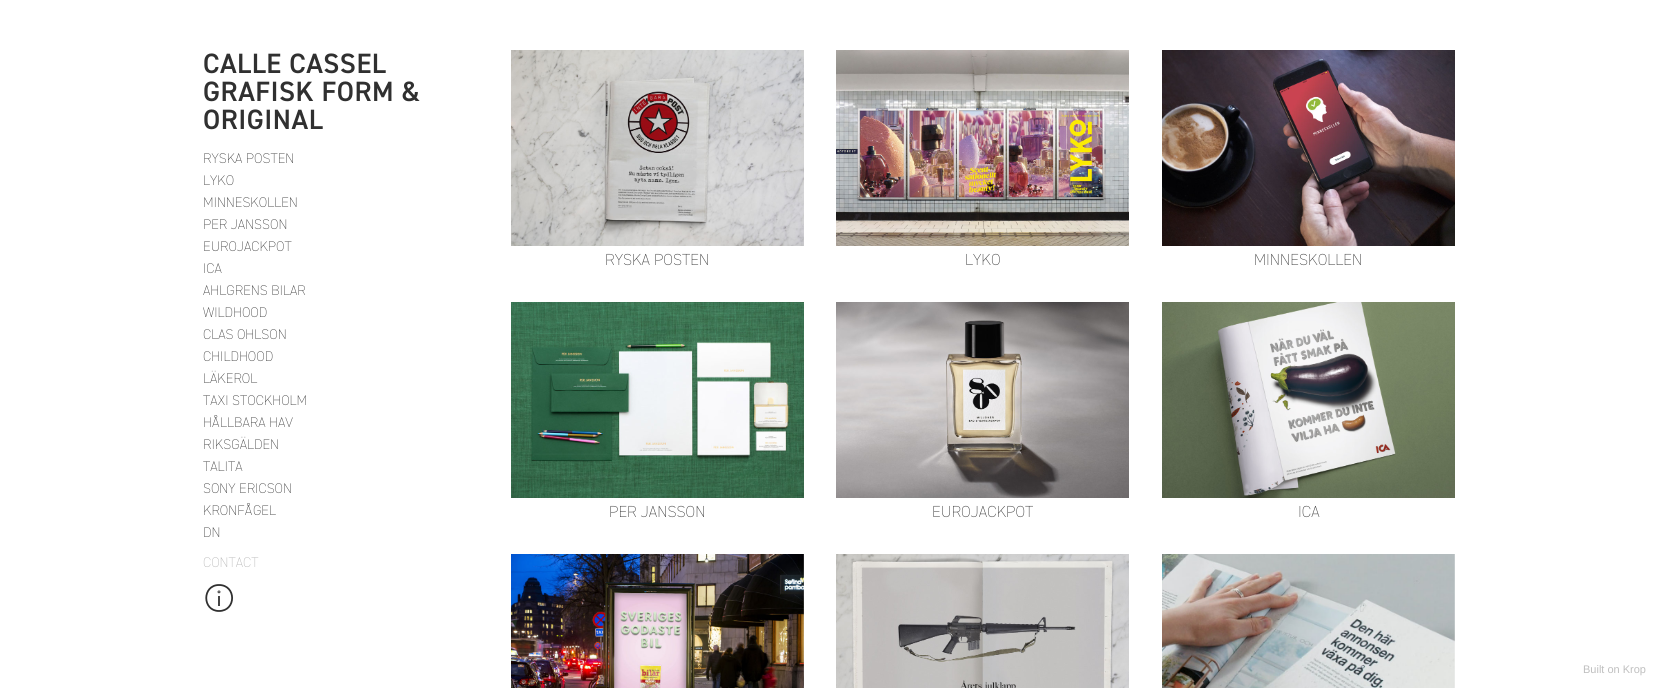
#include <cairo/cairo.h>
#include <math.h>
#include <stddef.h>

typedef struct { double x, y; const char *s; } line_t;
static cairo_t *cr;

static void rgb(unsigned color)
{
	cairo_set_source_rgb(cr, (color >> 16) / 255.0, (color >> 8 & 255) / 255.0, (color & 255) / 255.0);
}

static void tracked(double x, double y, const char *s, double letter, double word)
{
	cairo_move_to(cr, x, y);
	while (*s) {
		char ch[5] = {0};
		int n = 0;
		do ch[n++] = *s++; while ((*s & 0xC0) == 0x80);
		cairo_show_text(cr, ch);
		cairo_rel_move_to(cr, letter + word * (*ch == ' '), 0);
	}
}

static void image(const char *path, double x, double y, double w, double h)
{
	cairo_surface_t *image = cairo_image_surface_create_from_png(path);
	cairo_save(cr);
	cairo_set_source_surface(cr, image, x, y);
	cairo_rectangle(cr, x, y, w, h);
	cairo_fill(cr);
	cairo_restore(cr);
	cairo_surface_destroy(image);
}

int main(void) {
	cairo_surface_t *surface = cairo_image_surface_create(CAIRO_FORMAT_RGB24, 1658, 688);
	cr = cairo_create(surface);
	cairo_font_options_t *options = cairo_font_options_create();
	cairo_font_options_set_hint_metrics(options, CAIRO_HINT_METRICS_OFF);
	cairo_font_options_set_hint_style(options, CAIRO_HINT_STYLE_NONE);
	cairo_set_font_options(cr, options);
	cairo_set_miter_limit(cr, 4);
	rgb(0xffffff);
	cairo_paint(cr);
	cairo_new_path(cr);
	cairo_move_to(cr, 219, 611);
	cairo_curve_to(cr, 202, 611, 202, 585, 219, 585);
	cairo_curve_to(cr, 236.5, 585, 236.5, 611, 219, 611);
	cairo_close_path(cr);
	rgb(0x303030);
	cairo_set_line_width(cr, 1.8);
	cairo_stroke(cr);
	rgb(0x454545);
	cairo_rectangle(cr, 218, 596, 2, 10);
	cairo_fill(cr);
	cairo_arc(cr, 219, 591.9, 1, 0, 2 * M_PI);
	rgb(0x303030);
	cairo_set_line_width(cr, 0.9);
	cairo_stroke(cr);
	image("img/1.png", 511, 50, 293, 196);
	image("img/2.png", 836, 50, 293, 196);
	image("img/3.png", 1162, 50, 293, 196);
	image("img/4.png", 511, 302, 293, 196);
	image("img/5.png", 836, 302, 293, 196);
	image("img/6.png", 1162, 302, 293, 196);
	image("img/7.png", 511, 554, 293, 134);
	image("img/8.png", 836, 554, 293, 134);
	image("img/9.png", 1162, 554, 293, 134);
	cairo_select_font_face(cr, "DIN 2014 SemiBold", CAIRO_FONT_SLANT_NORMAL, CAIRO_FONT_WEIGHT_NORMAL);
	cairo_set_font_size(cr, 28);
	{
		static const line_t items[] = {
			{203, 73, "CALLE CASSEL"},
			{203, 101, "GRAFISK FORM &"},
			{203, 129, "ORIGINAL"},
		};
		for (size_t i = 0; i < sizeof items / sizeof *items; i++) {
			tracked(items[i].x, items[i].y, items[i].s, 0.5, 0);
		}
	}
	cairo_select_font_face(cr, "DIN 2014 ExtraLight", CAIRO_FONT_SLANT_NORMAL, CAIRO_FONT_WEIGHT_NORMAL);
	cairo_set_font_size(cr, 14);
	{
		static const line_t items[] = {
			{203, 163, "RYSKA POSTEN"},
			{203, 185, "LYKO"},
			{203, 207, "MINNESKOLLEN"},
			{203, 229, "PER JANSSON"},
			{203, 251, "EUROJACKPOT"},
			{203, 273, "ICA"},
			{203, 295, "AHLGRENS BILAR"},
			{203, 317, "WILDHOOD"},
			{203, 339, "CLAS OHLSON"},
			{203, 361, "CHILDHOOD"},
			{203, 383, "LÄKEROL"},
			{203, 405, "TAXI STOCKHOLM"},
			{203, 427, "HÅLLBARA HAV"},
			{203, 449, "RIKSGÄLDEN"},
			{203, 471, "TALITA"},
			{203, 493, "SONY ERICSON"},
			{203, 515, "KRONFÅGEL"},
			{203, 537, "DN"},
		};
		for (size_t i = 0; i < sizeof items / sizeof *items; i++) {
			cairo_move_to(cr, items[i].x, items[i].y);
			cairo_show_text(cr, items[i].s);
		}
	}
	rgb(0xb0b0b0);
	cairo_move_to(cr, 203, 567);
	cairo_show_text(cr, "CONTACT");
	cairo_set_font_size(cr, 16);
	rgb(0x303030);
	{
		static const line_t items[] = {
			{605, 265, "RYSKA POSTEN"},
			{965, 265, "LYKO"},
			{1254, 265, "MINNESKOLLEN"},
			{609, 517, "PER JANSSON"},
			{932, 517, "EUROJACKPOT"},
			{1298, 517, "ICA"},
		};
		for (size_t i = 0; i < sizeof items / sizeof *items; i++) {
			cairo_move_to(cr, items[i].x, items[i].y);
			cairo_show_text(cr, items[i].s);
		}
	}
	cairo_select_font_face(cr, "Liberation Sans", CAIRO_FONT_SLANT_NORMAL, CAIRO_FONT_WEIGHT_NORMAL);
	cairo_set_font_size(cr, 11);
	rgb(0xbfbfbf);
	cairo_move_to(cr, 1583, 673);
	cairo_show_text(cr, "Built on Krop");
	cairo_surface_write_to_png(surface, "page.png");
	cairo_font_options_destroy(options);
	cairo_destroy(cr);
	cairo_surface_destroy(surface);
	return 0;
}
